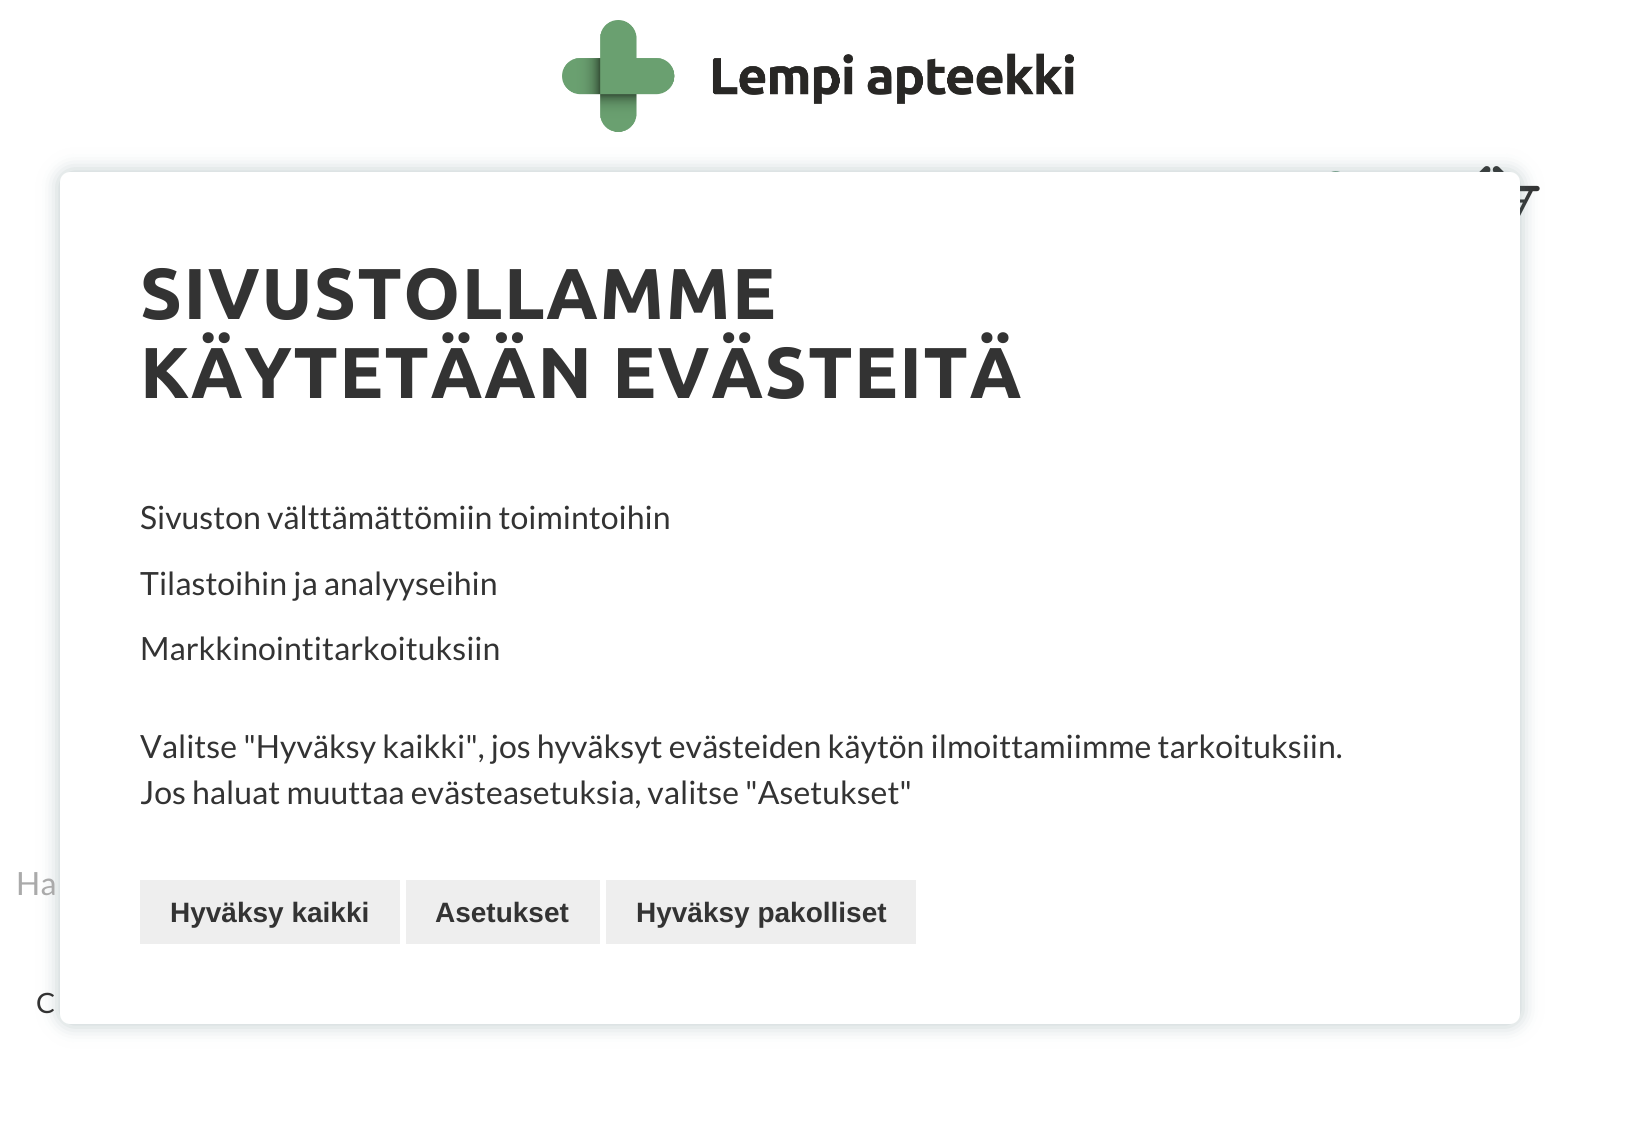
#include <cairo/cairo.h>
#include <math.h>
#include <stddef.h>

typedef struct { double x, y; const char *s; } line_t;
typedef struct { double x, y, w, h; unsigned color; } box_t;
static cairo_t *cr;

static void rgb(unsigned color)
{
	cairo_set_source_rgb(cr, (color >> 16) / 255.0, (color >> 8 & 255) / 255.0, (color & 255) / 255.0);
}

static void tracked(double x, double y, const char *s, double letter, double word)
{
	cairo_move_to(cr, x, y);
	while (*s) {
		char ch[5] = {0};
		int n = 0;
		do ch[n++] = *s++; while ((*s & 0xC0) == 0x80);
		cairo_show_text(cr, ch);
		cairo_rel_move_to(cr, letter + word * (*ch == ' '), 0);
	}
}

static void rrect(double x, double y, double w, double h, double r)
{
	cairo_new_sub_path(cr);
	cairo_arc(cr, x + w - r, y + h - r, r, 0, M_PI / 2);
	cairo_arc(cr, x + r, y + h - r, r, M_PI / 2, M_PI);
	cairo_arc(cr, x + r, y + r, r, M_PI, 1.5 * M_PI);
	cairo_arc(cr, x + w - r, y + r, r, 1.5 * M_PI, 2 * M_PI);
	cairo_close_path(cr);
}

static void soft_shadow(double x, double y, double w, double h, double r, double blur, double alpha)
{
	cairo_push_group_with_content(cr, CAIRO_CONTENT_ALPHA);
	cairo_set_operator(cr, CAIRO_OPERATOR_SOURCE);
	for (int i = 15; i >= -15 && fmin(w, h) + blur * i / 3 > 0; i -= 2) {
		double e = blur * i / 6;
		cairo_set_source_rgba(cr, 0, 0, 0, alpha * erfc((i - 1) / 8.5) / 2);
		rrect(x - e, y - e, w + 2 * e, h + 2 * e, fmax(0, fmin(r + e + blur * .6, fmin(w, h) / 2 + e)));
		cairo_fill(cr);
	}
	cairo_pattern_t *soft = cairo_pop_group(cr);
	cairo_mask(cr, soft);
	cairo_pattern_destroy(soft);
}

static void image(const char *path, double x, double y, double w, double h)
{
	cairo_surface_t *image = cairo_image_surface_create_from_png(path);
	cairo_save(cr);
	cairo_set_source_surface(cr, image, x, y);
	cairo_rectangle(cr, x, y, w, h);
	cairo_fill(cr);
	cairo_restore(cr);
	cairo_surface_destroy(image);
}

int main(void) {
	cairo_surface_t *surface = cairo_image_surface_create(CAIRO_FORMAT_RGB24, 1636, 1140);
	cr = cairo_create(surface);
	cairo_font_options_t *options = cairo_font_options_create();
	cairo_font_options_set_hint_metrics(options, CAIRO_HINT_METRICS_OFF);
	cairo_font_options_set_hint_style(options, CAIRO_HINT_STYLE_NONE);
	cairo_set_font_options(cr, options);
	cairo_set_miter_limit(cr, 4);
	rgb(0xffffff);
	cairo_paint(cr);
	image("img/1.png", 562, 20, 512, 112);
	image("img/2.png", 1331, 171, 9, 1);
	image("img/3.png", 1479, 166, 61, 50);
	rgb(0x547478);
	soft_shadow(60, 172, 1460, 852, 10, 10, 0.4);
	rgb(0xffffff);
	rrect(60, 172, 1460, 852, 10);
	cairo_fill(cr);
	{
		static const box_t items[] = {
			{140, 880, 260, 64, 0xeeeeee},
			{406, 880, 194, 64, 0xeeeeee},
			{606, 880, 310, 64, 0xeeeeee},
		};
		for (size_t i = 0; i < sizeof items / sizeof *items; i++) {
			rgb(items[i].color);
			cairo_rectangle(cr, items[i].x, items[i].y, items[i].w, items[i].h);
			cairo_fill(cr);
		}
	}
	cairo_select_font_face(cr, "Ubuntu", CAIRO_FONT_SLANT_NORMAL, CAIRO_FONT_WEIGHT_BOLD);
	cairo_set_font_size(cr, 72);
	rgb(0x333333);
	tracked(140, 319, "SIVUSTOLLAMME", 1.6, 0);
	tracked(140, 398, "KÄYTETÄÄN EVÄSTEITÄ", 1.6, 0);
	cairo_select_font_face(cr, "Lato", CAIRO_FONT_SLANT_NORMAL, CAIRO_FONT_WEIGHT_NORMAL);
	cairo_set_font_size(cr, 32);
	{
		static const line_t items[] = {
			{140, 529, "Sivuston välttämättömiin toimintoihin"},
			{140, 595, "Tilastoihin ja analyyseihin"},
			{140, 660, "Markkinointitarkoituksiin"},
			{140, 758, "Valitse \"Hyväksy kaikki\", jos hyväksyt evästeiden käytön ilmoittamiimme tarkoituksiin."},
			{140, 804, "Jos haluat muuttaa evästeasetuksia, valitse \"Asetukset\""},
		};
		for (size_t i = 0; i < sizeof items / sizeof *items; i++) {
			cairo_move_to(cr, items[i].x, items[i].y);
			cairo_show_text(cr, items[i].s);
		}
	}
	cairo_select_font_face(cr, "Liberation Sans", CAIRO_FONT_SLANT_NORMAL, CAIRO_FONT_WEIGHT_BOLD);
	cairo_set_font_size(cr, 28);
	{
		static const line_t items[] = {
			{170, 922, "Hyväksy kaikki"},
			{435, 922, "Asetukset"},
			{636, 922, "Hyväksy pakolliset"},
		};
		for (size_t i = 0; i < sizeof items / sizeof *items; i++) {
			cairo_move_to(cr, items[i].x, items[i].y);
			cairo_show_text(cr, items[i].s);
		}
	}
	cairo_select_font_face(cr, "Lato", CAIRO_FONT_SLANT_NORMAL, CAIRO_FONT_WEIGHT_NORMAL);
	cairo_set_font_size(cr, 32);
	rgb(0xaaaaaa);
	cairo_move_to(cr, 16, 895);
	cairo_show_text(cr, "Ha");
	cairo_set_font_size(cr, 28);
	rgb(0x333333);
	cairo_move_to(cr, 36, 1013);
	cairo_show_text(cr, "C");
	cairo_surface_write_to_png(surface, "page.png");
	cairo_font_options_destroy(options);
	cairo_destroy(cr);
	cairo_surface_destroy(surface);
	return 0;
}
